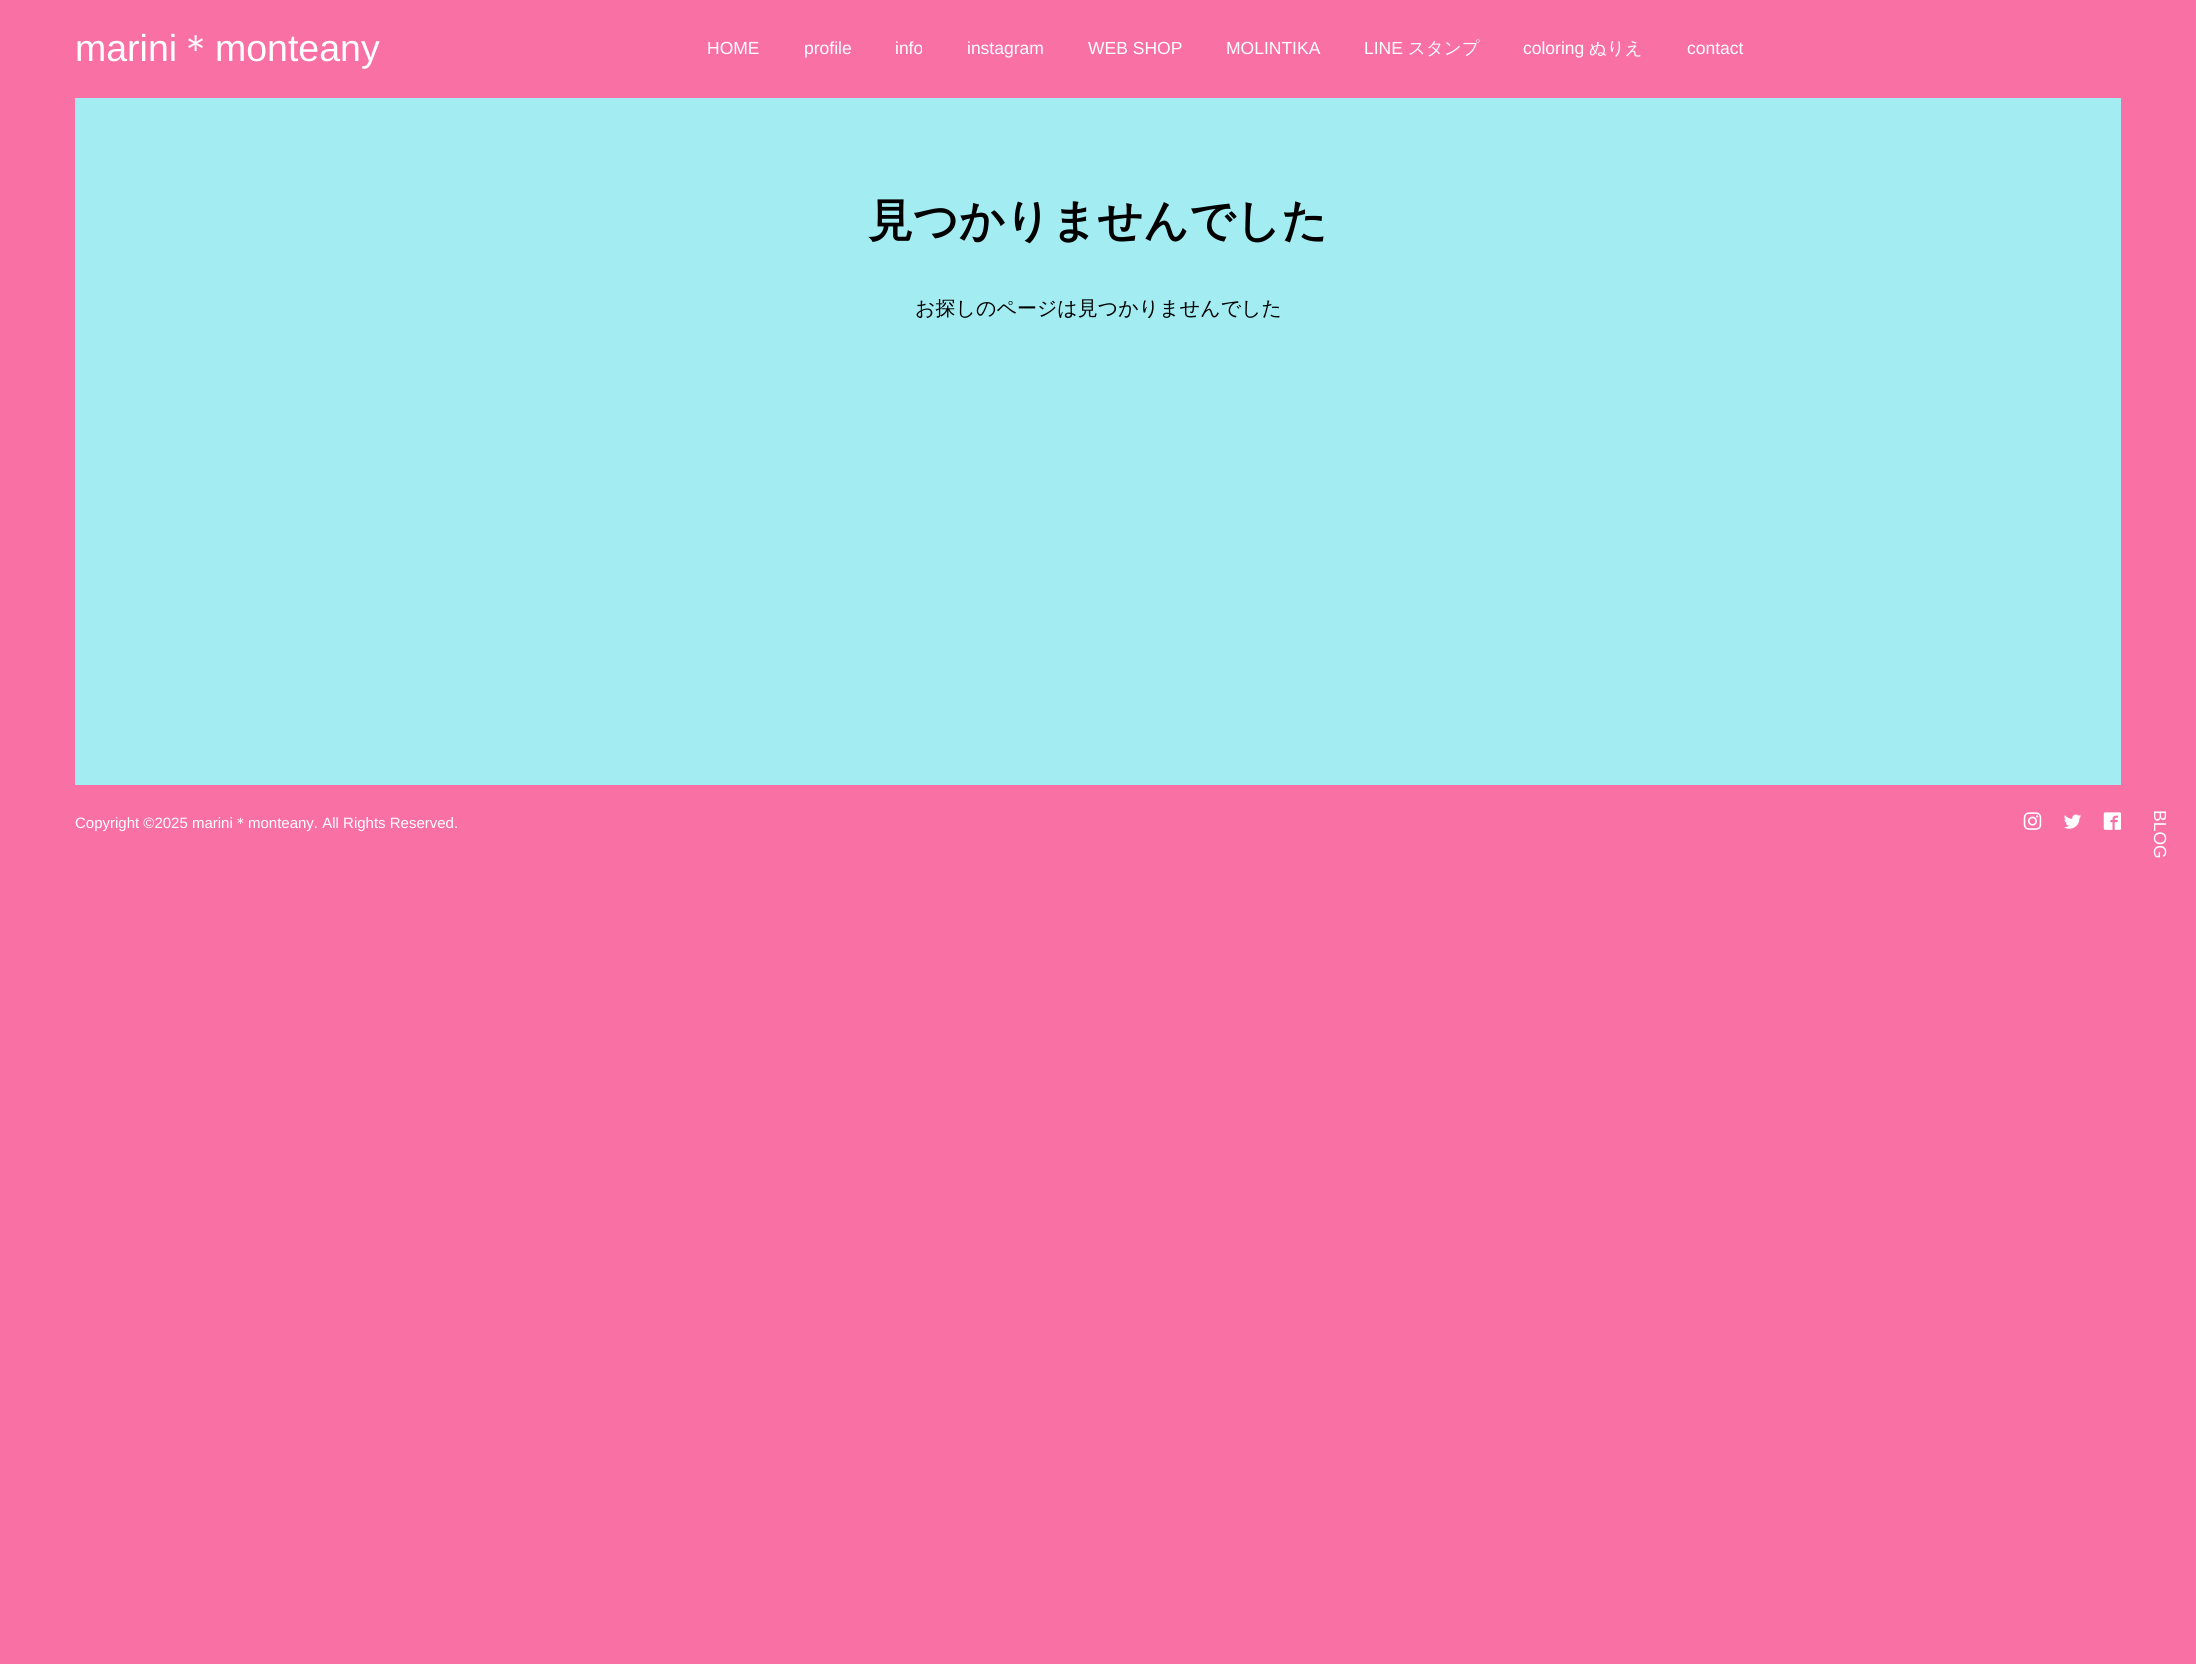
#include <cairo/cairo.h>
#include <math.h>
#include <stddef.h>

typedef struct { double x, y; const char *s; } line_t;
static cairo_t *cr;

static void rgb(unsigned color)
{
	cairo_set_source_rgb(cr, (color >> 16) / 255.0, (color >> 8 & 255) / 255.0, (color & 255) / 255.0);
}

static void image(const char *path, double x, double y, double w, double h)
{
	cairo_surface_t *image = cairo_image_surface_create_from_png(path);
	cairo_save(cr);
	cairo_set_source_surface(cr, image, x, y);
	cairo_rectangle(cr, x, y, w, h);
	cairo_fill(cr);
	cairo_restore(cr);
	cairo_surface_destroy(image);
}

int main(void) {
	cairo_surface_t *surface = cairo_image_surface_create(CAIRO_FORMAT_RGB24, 2196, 1664);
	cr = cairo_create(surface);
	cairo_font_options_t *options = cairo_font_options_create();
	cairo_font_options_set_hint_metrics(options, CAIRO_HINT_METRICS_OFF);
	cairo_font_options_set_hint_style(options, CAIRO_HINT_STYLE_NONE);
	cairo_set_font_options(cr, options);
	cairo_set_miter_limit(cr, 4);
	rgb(0xf970a5);
	cairo_paint(cr);
	rgb(0xa2ecf2);
	cairo_rectangle(cr, 75, 98, 2046, 687);
	cairo_fill(cr);
	image("img/1.png", 2023, 812, 19, 18);
	image("img/2.png", 2064, 814, 17, 15);
	image("img/3.png", 2103, 812, 18, 18);
	cairo_select_font_face(cr, "Liberation Sans", CAIRO_FONT_SLANT_NORMAL, CAIRO_FONT_WEIGHT_NORMAL);
	cairo_set_font_size(cr, 37.5);
	rgb(0xffffff);
	cairo_move_to(cr, 75, 61);
	cairo_show_text(cr, "marini");
	cairo_select_font_face(cr, "WenQuanYi Zen Hei Medium", CAIRO_FONT_SLANT_NORMAL, CAIRO_FONT_WEIGHT_NORMAL);
	cairo_move_to(cr, 177, 61);
	cairo_show_text(cr, "＊");
	cairo_select_font_face(cr, "Liberation Sans", CAIRO_FONT_SLANT_NORMAL, CAIRO_FONT_WEIGHT_NORMAL);
	cairo_move_to(cr, 215, 61);
	cairo_show_text(cr, "monteany");
	cairo_set_font_size(cr, 17.5);
	{
		static const line_t items[] = {
			{707, 54, "HOME"},
			{804, 54, "profile"},
			{895, 54, "info"},
			{967, 54, "instagram"},
			{1088, 54, "WEB SHOP"},
			{1226, 54, "MOLINTIKA"},
			{1364, 54, "LINE"},
		};
		for (size_t i = 0; i < sizeof items / sizeof *items; i++) {
			cairo_move_to(cr, items[i].x, items[i].y);
			cairo_show_text(cr, items[i].s);
		}
	}
	cairo_select_font_face(cr, "WenQuanYi Zen Hei Medium", CAIRO_FONT_SLANT_NORMAL, CAIRO_FONT_WEIGHT_NORMAL);
	cairo_move_to(cr, 1408, 54);
	cairo_show_text(cr, "スタンプ");
	cairo_select_font_face(cr, "Liberation Sans", CAIRO_FONT_SLANT_NORMAL, CAIRO_FONT_WEIGHT_NORMAL);
	cairo_move_to(cr, 1523, 54);
	cairo_show_text(cr, "coloring");
	cairo_select_font_face(cr, "WenQuanYi Zen Hei Medium", CAIRO_FONT_SLANT_NORMAL, CAIRO_FONT_WEIGHT_NORMAL);
	cairo_move_to(cr, 1589, 54);
	cairo_show_text(cr, "ぬりえ");
	cairo_select_font_face(cr, "Liberation Sans", CAIRO_FONT_SLANT_NORMAL, CAIRO_FONT_WEIGHT_NORMAL);
	cairo_move_to(cr, 1687, 54);
	cairo_show_text(cr, "contact");
	cairo_save(cr);
	cairo_translate(cr, 2154, 810);
	cairo_rotate(cr, 90 * M_PI / 180);
	cairo_move_to(cr, 0, 0);
	cairo_show_text(cr, "BLOG");
	cairo_restore(cr);
	cairo_select_font_face(cr, "WenQuanYi Zen Hei", CAIRO_FONT_SLANT_NORMAL, CAIRO_FONT_WEIGHT_BOLD);
	cairo_set_font_size(cr, 45);
	rgb(0x000000);
	cairo_move_to(cr, 868, 236);
	cairo_show_text(cr, "見つかりませんでした");
	cairo_select_font_face(cr, "WenQuanYi Zen Hei Medium", CAIRO_FONT_SLANT_NORMAL, CAIRO_FONT_WEIGHT_NORMAL);
	cairo_set_font_size(cr, 20);
	cairo_move_to(cr, 915, 315);
	cairo_show_text(cr, "お探しのページは見つかりませんでした");
	cairo_select_font_face(cr, "Liberation Sans", CAIRO_FONT_SLANT_NORMAL, CAIRO_FONT_WEIGHT_NORMAL);
	cairo_set_font_size(cr, 15);
	rgb(0xffffff);
	cairo_move_to(cr, 75, 828);
	cairo_show_text(cr, "Copyright ©2025 marini");
	cairo_select_font_face(cr, "WenQuanYi Zen Hei Medium", CAIRO_FONT_SLANT_NORMAL, CAIRO_FONT_WEIGHT_NORMAL);
	cairo_move_to(cr, 233, 828);
	cairo_show_text(cr, "＊");
	cairo_select_font_face(cr, "Liberation Sans", CAIRO_FONT_SLANT_NORMAL, CAIRO_FONT_WEIGHT_NORMAL);
	cairo_move_to(cr, 248, 828);
	cairo_show_text(cr, "monteany. All Rights Reserved.");
	cairo_surface_write_to_png(surface, "page.png");
	cairo_font_options_destroy(options);
	cairo_destroy(cr);
	cairo_surface_destroy(surface);
	return 0;
}
